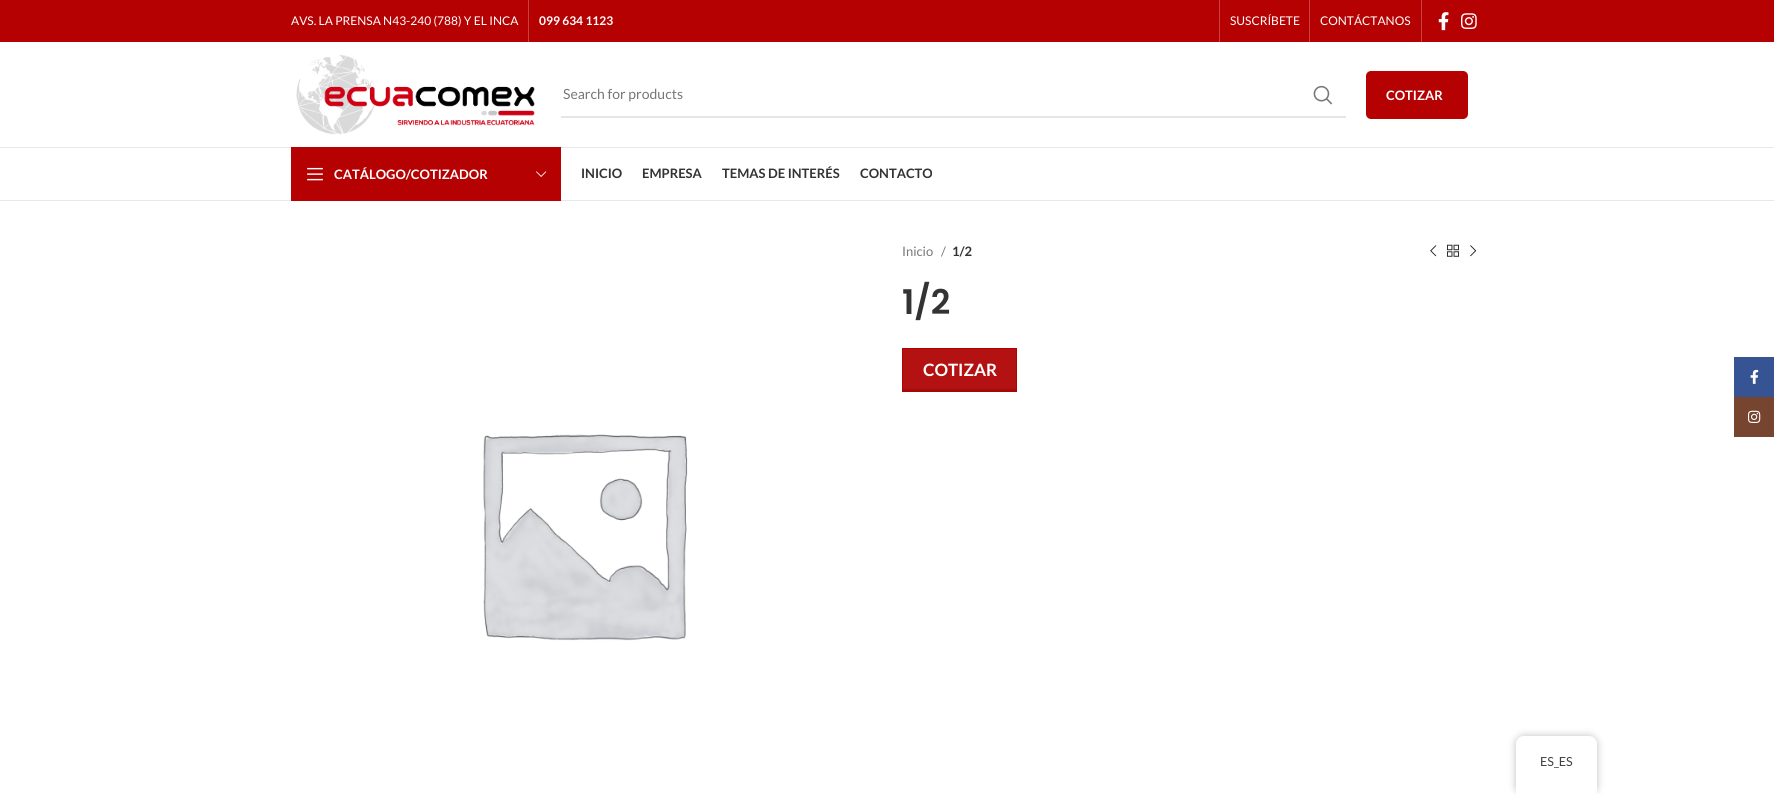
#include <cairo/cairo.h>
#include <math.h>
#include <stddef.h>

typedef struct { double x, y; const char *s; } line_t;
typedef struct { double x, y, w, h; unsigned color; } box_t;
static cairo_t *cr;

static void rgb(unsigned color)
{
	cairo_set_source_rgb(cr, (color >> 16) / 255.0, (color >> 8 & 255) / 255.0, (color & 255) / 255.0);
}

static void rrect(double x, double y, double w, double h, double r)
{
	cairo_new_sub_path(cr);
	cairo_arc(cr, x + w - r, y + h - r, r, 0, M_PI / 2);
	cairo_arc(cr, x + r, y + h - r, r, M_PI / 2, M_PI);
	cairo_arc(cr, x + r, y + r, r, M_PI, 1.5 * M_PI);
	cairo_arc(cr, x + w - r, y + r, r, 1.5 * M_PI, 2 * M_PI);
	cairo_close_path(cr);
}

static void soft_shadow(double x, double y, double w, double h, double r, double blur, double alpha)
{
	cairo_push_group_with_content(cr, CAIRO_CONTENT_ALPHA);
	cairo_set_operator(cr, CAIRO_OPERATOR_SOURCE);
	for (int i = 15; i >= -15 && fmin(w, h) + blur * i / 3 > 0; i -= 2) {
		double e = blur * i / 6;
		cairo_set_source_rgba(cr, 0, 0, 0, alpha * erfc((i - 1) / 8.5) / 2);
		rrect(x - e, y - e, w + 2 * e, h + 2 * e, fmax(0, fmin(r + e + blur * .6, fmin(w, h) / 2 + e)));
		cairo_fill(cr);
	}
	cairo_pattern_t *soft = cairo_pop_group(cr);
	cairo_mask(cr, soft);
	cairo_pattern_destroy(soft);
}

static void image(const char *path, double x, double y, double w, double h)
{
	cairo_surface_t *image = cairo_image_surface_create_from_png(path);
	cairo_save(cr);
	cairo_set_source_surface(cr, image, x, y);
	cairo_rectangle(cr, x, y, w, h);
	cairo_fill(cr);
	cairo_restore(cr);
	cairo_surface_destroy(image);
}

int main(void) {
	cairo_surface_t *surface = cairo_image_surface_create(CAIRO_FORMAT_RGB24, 1774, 794);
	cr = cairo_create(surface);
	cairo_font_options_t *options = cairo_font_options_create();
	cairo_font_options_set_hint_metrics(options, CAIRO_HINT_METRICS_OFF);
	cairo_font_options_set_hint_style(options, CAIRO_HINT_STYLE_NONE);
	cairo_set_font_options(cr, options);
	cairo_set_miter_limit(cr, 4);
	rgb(0xffffff);
	cairo_paint(cr);
	{
		static const box_t items[] = {
			{0, 0, 1774, 42, 0xb50101},
			{528, 0, 1, 42, 0xc84141},
			{1219, 0, 1, 42, 0xc84141},
			{1309, 0, 1, 42, 0xc84141},
			{1421, 0, 1, 42, 0xc84141},
		};
		for (size_t i = 0; i < sizeof items / sizeof *items; i++) {
			rgb(items[i].color);
			cairo_rectangle(cr, items[i].x, items[i].y, items[i].w, items[i].h);
			cairo_fill(cr);
		}
	}
	image("img/1.png", 1438, 12, 11, 19);
	image("img/2.png", 1461, 13, 16, 16);
	rgb(0xe8e8e8);
	cairo_rectangle(cr, 0, 147, 1774, 1);
	cairo_fill(cr);
	image("img/3.png", 296, 55, 239, 80);
	rgb(0xe6e6e6);
	cairo_rectangle(cr, 561, 116, 785, 2);
	cairo_fill(cr);
	image("img/4.png", 1313, 85, 20, 20);
	rgb(0xb50101);
	rrect(1366, 71, 102, 48, 5);
	cairo_fill(cr);
	rgb(0xe8e8e8);
	cairo_rectangle(cr, 0, 200, 1774, 1);
	cairo_fill(cr);
	rgb(0xb50101);
	cairo_rectangle(cr, 291, 147, 270, 54);
	cairo_fill(cr);
	image("img/5.png", 307, 167, 16, 14);
	image("img/6.png", 536, 171, 11, 6);
	image("img/7.png", 1430, 245, 7, 12);
	image("img/8.png", 1447, 244, 12, 13);
	image("img/9.png", 1470, 245, 7, 12);
	rgb(0xb41212);
	cairo_rectangle(cr, 903, 349, 113, 40);
	cairo_fill(cr);
	rgb(0x990f0f);
	cairo_rectangle(cr, 903, 389, 113, 2);
	cairo_fill(cr);
	cairo_rectangle(cr, 902.5, 348.5, 114, 43);
	rgb(0xb20000);
	cairo_set_line_width(cr, 1);
	cairo_stroke(cr);
	image("img/10.png", 483, 434, 205, 207);
	rgb(0x365493);
	cairo_rectangle(cr, 1734, 357, 40, 40);
	cairo_fill(cr);
	image("img/11.png", 1750, 369, 9, 15);
	rgb(0x774430);
	cairo_rectangle(cr, 1734, 397, 40, 40);
	cairo_fill(cr);
	image("img/12.png", 1748, 410, 13, 13);
	rgb(0x000000);
	soft_shadow(1516, 736, 81, 58, 8, 4, 0.25);
	rgb(0xffffff);
	cairo_new_path(cr);
	cairo_move_to(cr, 1524, 736);
	cairo_line_to(cr, 1589, 736);
	cairo_curve_to(cr, 1593.5, 736, 1597, 739.5, 1597, 744);
	cairo_line_to(cr, 1597, 794);
	cairo_line_to(cr, 1516, 794);
	cairo_line_to(cr, 1516, 744);
	cairo_curve_to(cr, 1516, 739.5, 1519.5, 736, 1524, 736);
	cairo_close_path(cr);
	cairo_fill(cr);
	cairo_select_font_face(cr, "Lato", CAIRO_FONT_SLANT_NORMAL, CAIRO_FONT_WEIGHT_NORMAL);
	cairo_set_font_size(cr, 12);
	cairo_move_to(cr, 291, 25);
	cairo_show_text(cr, "AVS. LA PRENSA N43-240 (788) Y EL INCA");
	cairo_select_font_face(cr, "Lato", CAIRO_FONT_SLANT_NORMAL, CAIRO_FONT_WEIGHT_BOLD);
	cairo_move_to(cr, 539, 25);
	cairo_show_text(cr, "099 634 1123");
	cairo_select_font_face(cr, "Lato", CAIRO_FONT_SLANT_NORMAL, CAIRO_FONT_WEIGHT_NORMAL);
	cairo_move_to(cr, 1230, 25);
	cairo_show_text(cr, "SUSCRÍBETE");
	cairo_move_to(cr, 1320, 25);
	cairo_show_text(cr, "CONTÁCTANOS");
	cairo_set_font_size(cr, 14);
	rgb(0x777777);
	cairo_move_to(cr, 563, 99);
	cairo_show_text(cr, "Search for products");
	cairo_select_font_face(cr, "Lato", CAIRO_FONT_SLANT_NORMAL, CAIRO_FONT_WEIGHT_BOLD);
	cairo_set_font_size(cr, 13);
	rgb(0xffffff);
	cairo_move_to(cr, 1386, 100);
	cairo_show_text(cr, "COTIZAR");
	cairo_move_to(cr, 334, 179);
	cairo_show_text(cr, "CATÁLOGO/COTIZADOR");
	rgb(0x333333);
	{
		static const line_t items[] = {
			{581, 178, "INICIO"},
			{642, 178, "EMPRESA"},
			{722, 178, "TEMAS DE INTERÉS"},
			{860, 178, "CONTACTO"},
		};
		for (size_t i = 0; i < sizeof items / sizeof *items; i++) {
			cairo_move_to(cr, items[i].x, items[i].y);
			cairo_show_text(cr, items[i].s);
		}
	}
	cairo_select_font_face(cr, "Lato", CAIRO_FONT_SLANT_NORMAL, CAIRO_FONT_WEIGHT_NORMAL);
	rgb(0x777777);
	cairo_move_to(cr, 902, 256);
	cairo_show_text(cr, "Inicio");
	cairo_move_to(cr, 941, 256);
	cairo_show_text(cr, "/");
	cairo_select_font_face(cr, "Lato", CAIRO_FONT_SLANT_NORMAL, CAIRO_FONT_WEIGHT_BOLD);
	rgb(0x333333);
	cairo_move_to(cr, 952, 256);
	cairo_show_text(cr, "1/2");
	cairo_select_font_face(cr, "Poppins SemiBold", CAIRO_FONT_SLANT_NORMAL, CAIRO_FONT_WEIGHT_NORMAL);
	cairo_set_font_size(cr, 34);
	cairo_move_to(cr, 902, 314);
	cairo_show_text(cr, "1/2");
	cairo_select_font_face(cr, "Lato", CAIRO_FONT_SLANT_NORMAL, CAIRO_FONT_WEIGHT_BOLD);
	cairo_set_font_size(cr, 17);
	rgb(0xffffff);
	cairo_move_to(cr, 923, 376);
	cairo_show_text(cr, "COTIZAR");
	cairo_select_font_face(cr, "Lato", CAIRO_FONT_SLANT_NORMAL, CAIRO_FONT_WEIGHT_NORMAL);
	cairo_set_font_size(cr, 12.5);
	rgb(0x404040);
	cairo_move_to(cr, 1540, 766);
	cairo_show_text(cr, "ES_ES");
	cairo_surface_write_to_png(surface, "page.png");
	cairo_font_options_destroy(options);
	cairo_destroy(cr);
	cairo_surface_destroy(surface);
	return 0;
}
